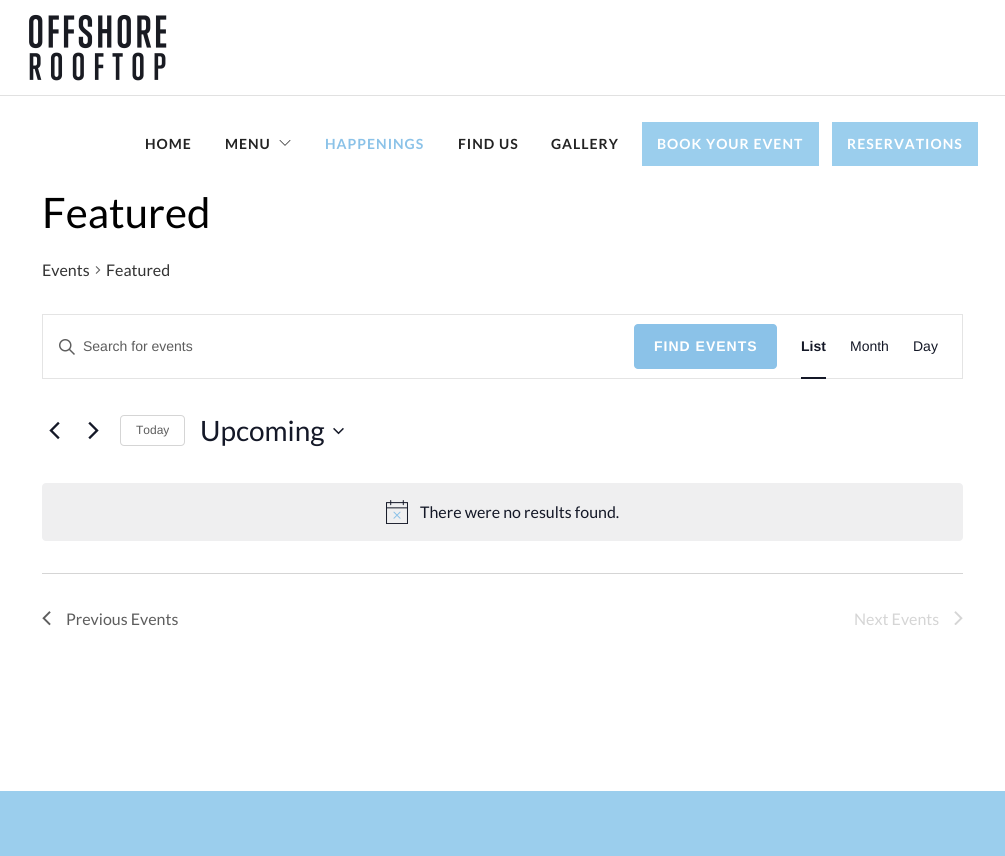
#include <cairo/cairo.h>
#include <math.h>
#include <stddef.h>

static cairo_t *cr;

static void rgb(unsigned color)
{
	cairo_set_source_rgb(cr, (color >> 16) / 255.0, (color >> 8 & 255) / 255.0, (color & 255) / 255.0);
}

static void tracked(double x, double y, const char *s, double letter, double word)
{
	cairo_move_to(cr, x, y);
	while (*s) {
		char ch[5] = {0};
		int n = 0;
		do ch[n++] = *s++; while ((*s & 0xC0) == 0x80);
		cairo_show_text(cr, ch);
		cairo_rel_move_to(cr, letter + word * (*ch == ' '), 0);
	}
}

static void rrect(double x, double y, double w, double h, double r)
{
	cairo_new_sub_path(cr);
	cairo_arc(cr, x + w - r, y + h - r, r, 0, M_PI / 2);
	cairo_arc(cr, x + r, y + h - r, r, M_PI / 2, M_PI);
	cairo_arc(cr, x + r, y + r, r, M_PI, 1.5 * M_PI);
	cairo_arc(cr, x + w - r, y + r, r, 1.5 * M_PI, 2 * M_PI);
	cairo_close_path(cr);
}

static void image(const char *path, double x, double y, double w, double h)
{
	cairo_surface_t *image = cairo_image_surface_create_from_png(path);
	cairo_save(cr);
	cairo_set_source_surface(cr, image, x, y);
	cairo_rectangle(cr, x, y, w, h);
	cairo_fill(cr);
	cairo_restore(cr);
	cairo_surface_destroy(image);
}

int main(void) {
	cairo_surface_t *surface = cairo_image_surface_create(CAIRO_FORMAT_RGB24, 1005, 856);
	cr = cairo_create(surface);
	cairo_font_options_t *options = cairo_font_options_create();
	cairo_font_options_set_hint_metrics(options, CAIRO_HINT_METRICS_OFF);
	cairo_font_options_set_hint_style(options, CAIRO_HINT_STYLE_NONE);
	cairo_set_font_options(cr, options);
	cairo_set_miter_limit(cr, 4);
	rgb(0xffffff);
	cairo_paint(cr);
	rgb(0xe1e1e1);
	cairo_rectangle(cr, 0, 95, 1005, 1);
	cairo_fill(cr);
	image("img/1.png", 29, 14, 138, 67);
	image("img/2.png", 279, 140, 12, 6);
	rgb(0x9bceed);
	cairo_rectangle(cr, 642, 122, 177, 44);
	cairo_fill(cr);
	cairo_rectangle(cr, 832, 122, 146, 44);
	cairo_fill(cr);
	image("img/3.png", 95, 266, 6, 8);
	cairo_rectangle(cr, 42.5, 314.5, 920, 64);
	rgb(0xe4e4e4);
	cairo_set_line_width(cr, 1);
	cairo_stroke(cr);
	image("img/4.png", 59, 339, 16, 16);
	rgb(0x8bc2e8);
	rrect(634, 324, 143, 45, 4);
	cairo_fill(cr);
	rgb(0x141827);
	cairo_rectangle(cr, 801, 377, 25, 2);
	cairo_fill(cr);
	image("img/5.png", 49, 421, 11, 19);
	image("img/6.png", 88, 421, 11, 19);
	rrect(120.5, 415.5, 64, 30, 3.5);
	rgb(0xd5d5d5);
	cairo_stroke(cr);
	image("img/7.png", 333, 427, 11, 8);
	rgb(0xefeff0);
	rrect(42, 483, 921, 58, 4);
	cairo_fill(cr);
	image("img/8.png", 386, 500, 22, 24);
	rgb(0xd5d5d5);
	cairo_rectangle(cr, 42, 573, 921, 1);
	cairo_fill(cr);
	image("img/9.png", 42, 611, 9, 15);
	image("img/10.png", 954, 611, 9, 14);
	rgb(0x9bceed);
	cairo_rectangle(cr, 0, 791, 1005, 65);
	cairo_fill(cr);
	cairo_select_font_face(cr, "Lato", CAIRO_FONT_SLANT_NORMAL, CAIRO_FONT_WEIGHT_BOLD);
	cairo_set_font_size(cr, 14);
	rgb(0x222222);
	tracked(145, 149, "HOME", 1, 0);
	tracked(225, 149, "MENU", 1, 0);
	rgb(0x8bc2e8);
	tracked(325, 149, "HAPPENINGS", 1, 0);
	rgb(0x222222);
	tracked(458, 149, "FIND US", 1, 0);
	tracked(551, 149, "GALLERY", 1, 0);
	rgb(0xffffff);
	tracked(657, 149, "BOOK YOUR EVENT", 1, 0);
	tracked(847, 149, "RESERVATIONS", 1, 0);
	cairo_select_font_face(cr, "Lato", CAIRO_FONT_SLANT_NORMAL, CAIRO_FONT_WEIGHT_NORMAL);
	cairo_set_font_size(cr, 42);
	rgb(0x000000);
	cairo_move_to(cr, 42, 228);
	cairo_show_text(cr, "Featured");
	cairo_set_font_size(cr, 16);
	rgb(0x333333);
	cairo_move_to(cr, 42, 276);
	cairo_show_text(cr, "Events");
	cairo_move_to(cr, 106, 276);
	cairo_show_text(cr, "Featured");
	cairo_select_font_face(cr, "Liberation Sans", CAIRO_FONT_SLANT_NORMAL, CAIRO_FONT_WEIGHT_NORMAL);
	cairo_set_font_size(cr, 14);
	rgb(0x5d5d5d);
	cairo_move_to(cr, 83, 351);
	cairo_show_text(cr, "Search for events");
	cairo_select_font_face(cr, "Liberation Sans", CAIRO_FONT_SLANT_NORMAL, CAIRO_FONT_WEIGHT_BOLD);
	rgb(0xffffff);
	tracked(654, 351, "FIND EVENTS", 1, 0);
	rgb(0x141827);
	cairo_move_to(cr, 801, 351);
	cairo_show_text(cr, "List");
	cairo_select_font_face(cr, "Liberation Sans", CAIRO_FONT_SLANT_NORMAL, CAIRO_FONT_WEIGHT_NORMAL);
	cairo_move_to(cr, 850, 351);
	cairo_show_text(cr, "Month");
	cairo_move_to(cr, 913, 351);
	cairo_show_text(cr, "Day");
	cairo_set_font_size(cr, 12);
	rgb(0x5d5d5d);
	cairo_move_to(cr, 136, 434);
	cairo_show_text(cr, "Today");
	cairo_select_font_face(cr, "Lato", CAIRO_FONT_SLANT_NORMAL, CAIRO_FONT_WEIGHT_NORMAL);
	cairo_set_font_size(cr, 28);
	rgb(0x141827);
	cairo_move_to(cr, 200, 441);
	cairo_show_text(cr, "Upcoming");
	cairo_set_font_size(cr, 16);
	cairo_move_to(cr, 420, 518);
	cairo_show_text(cr, "There were no results found.");
	rgb(0x5d5d5d);
	cairo_move_to(cr, 66, 625);
	cairo_show_text(cr, "Previous Events");
	rgb(0xd5d5d5);
	cairo_move_to(cr, 854, 625);
	cairo_show_text(cr, "Next Events");
	cairo_surface_write_to_png(surface, "page.png");
	cairo_font_options_destroy(options);
	cairo_destroy(cr);
	cairo_surface_destroy(surface);
	return 0;
}
